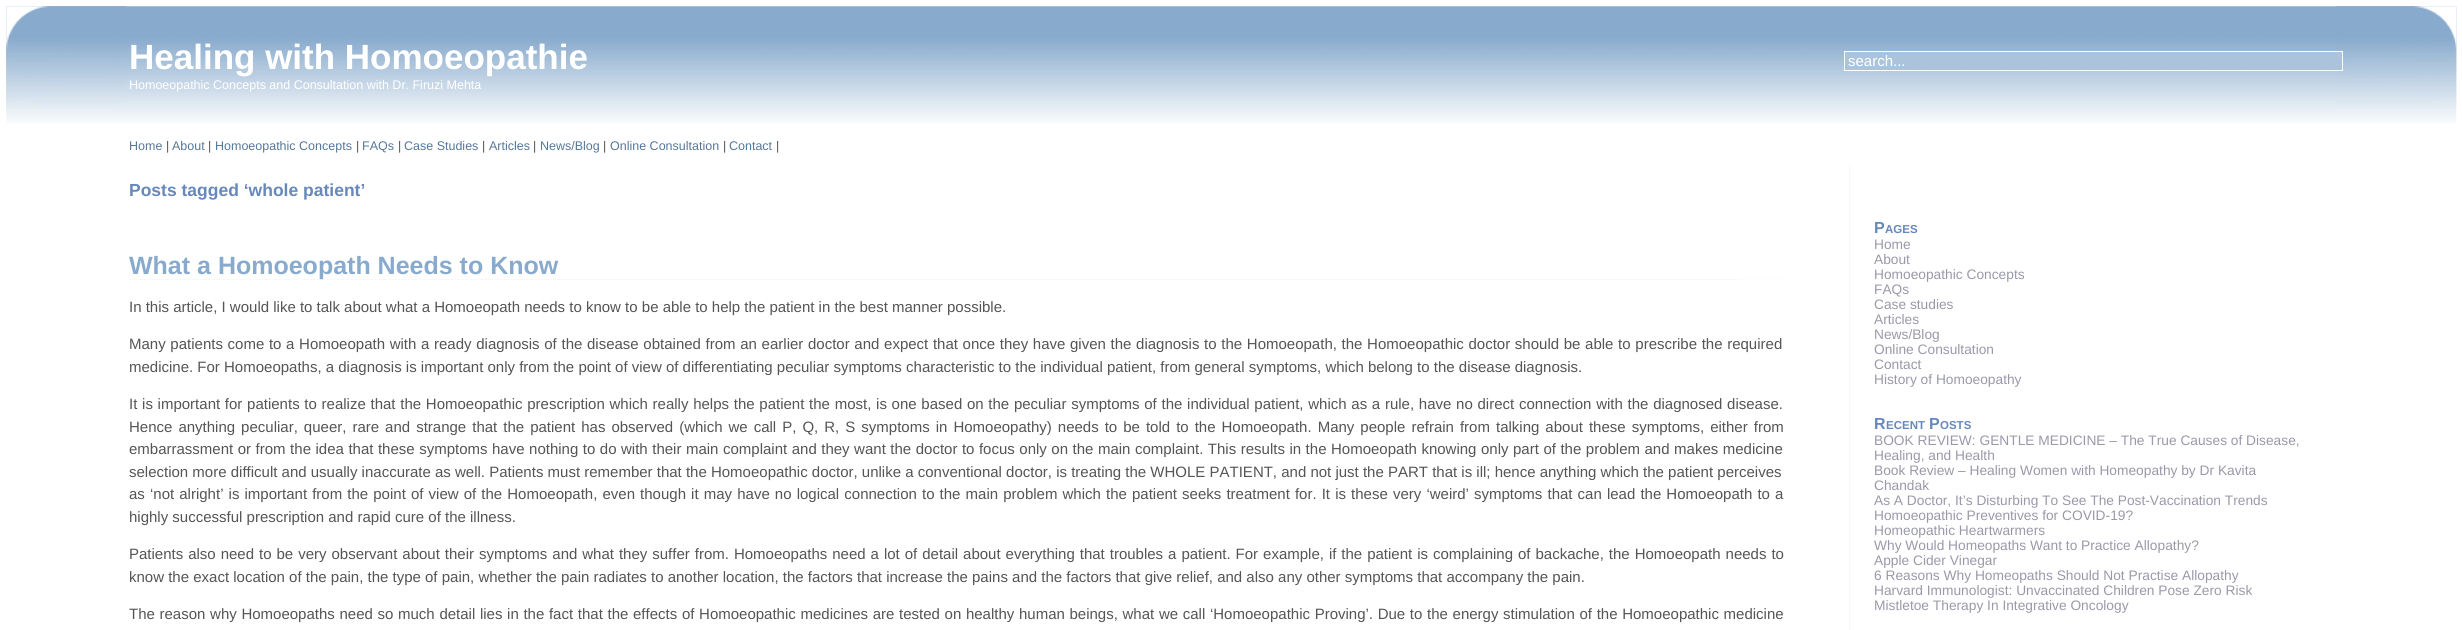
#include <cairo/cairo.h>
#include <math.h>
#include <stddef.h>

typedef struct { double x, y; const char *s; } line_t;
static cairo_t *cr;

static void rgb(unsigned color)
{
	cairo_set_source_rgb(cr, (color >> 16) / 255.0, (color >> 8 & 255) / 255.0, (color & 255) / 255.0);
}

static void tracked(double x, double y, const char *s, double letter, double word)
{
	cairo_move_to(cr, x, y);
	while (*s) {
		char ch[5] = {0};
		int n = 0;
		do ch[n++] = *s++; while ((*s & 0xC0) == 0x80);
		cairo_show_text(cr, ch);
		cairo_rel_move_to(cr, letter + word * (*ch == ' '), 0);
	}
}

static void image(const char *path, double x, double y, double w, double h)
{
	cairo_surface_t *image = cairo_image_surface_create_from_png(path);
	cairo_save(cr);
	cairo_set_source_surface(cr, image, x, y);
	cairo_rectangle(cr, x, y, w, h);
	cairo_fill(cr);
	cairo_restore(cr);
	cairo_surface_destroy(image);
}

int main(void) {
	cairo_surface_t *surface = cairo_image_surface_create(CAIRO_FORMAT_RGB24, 2462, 630);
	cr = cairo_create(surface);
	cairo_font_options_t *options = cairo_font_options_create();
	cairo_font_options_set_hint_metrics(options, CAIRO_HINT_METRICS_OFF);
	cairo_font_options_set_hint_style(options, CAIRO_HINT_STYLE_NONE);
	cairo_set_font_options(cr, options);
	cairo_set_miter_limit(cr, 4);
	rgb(0xffffff);
	cairo_paint(cr);
	image("img/1.png", 6, 6, 2451, 118);
	image("img/2.png", 6, 6, 121, 105);
	image("img/3.png", 2336, 6, 121, 104);
	rgb(0xacc4db);
	cairo_rectangle(cr, 1844.5, 51.5, 498, 19);
	cairo_fill_preserve(cr);
	rgb(0xffffff);
	cairo_set_line_width(cr, 1);
	cairo_stroke(cr);
	image("img/4.png", 129, 279, 1654, 1);
	rgb(0xfefdfe);
	cairo_rectangle(cr, 1738, 279, 44, 1);
	cairo_fill(cr);
	rgb(0xf8f8f8);
	cairo_rectangle(cr, 1849, 165, 1, 465);
	cairo_fill(cr);
	cairo_select_font_face(cr, "Liberation Sans", CAIRO_FONT_SLANT_NORMAL, CAIRO_FONT_WEIGHT_BOLD);
	cairo_set_font_size(cr, 35);
	rgb(0xffffff);
	cairo_move_to(cr, 129, 69);
	cairo_show_text(cr, "Healing with Homoeopathie");
	cairo_select_font_face(cr, "Liberation Sans", CAIRO_FONT_SLANT_NORMAL, CAIRO_FONT_WEIGHT_NORMAL);
	cairo_set_font_size(cr, 12.5);
	cairo_move_to(cr, 129, 89);
	cairo_show_text(cr, "Homoeopathic Concepts and Consultation with Dr. Firuzi Mehta");
	cairo_set_font_size(cr, 15);
	cairo_move_to(cr, 1848, 66);
	cairo_show_text(cr, "search...");
	cairo_set_font_size(cr, 12.5);
	rgb(0x557799);
	cairo_move_to(cr, 129, 150);
	cairo_show_text(cr, "Home");
	rgb(0x555555);
	cairo_move_to(cr, 166, 150);
	cairo_show_text(cr, "|");
	rgb(0x557799);
	cairo_move_to(cr, 172, 150);
	cairo_show_text(cr, "About");
	rgb(0x555555);
	cairo_move_to(cr, 208, 150);
	cairo_show_text(cr, "|");
	rgb(0x557799);
	cairo_move_to(cr, 215, 150);
	cairo_show_text(cr, "Homoeopathic Concepts");
	rgb(0x555555);
	cairo_move_to(cr, 356, 150);
	cairo_show_text(cr, "|");
	rgb(0x557799);
	cairo_move_to(cr, 362, 150);
	cairo_show_text(cr, "FAQs");
	rgb(0x555555);
	cairo_move_to(cr, 398, 150);
	cairo_show_text(cr, "|");
	rgb(0x557799);
	cairo_move_to(cr, 404, 150);
	cairo_show_text(cr, "Case Studies");
	rgb(0x555555);
	cairo_move_to(cr, 482, 150);
	cairo_show_text(cr, "|");
	rgb(0x557799);
	cairo_move_to(cr, 489, 150);
	cairo_show_text(cr, "Articles");
	rgb(0x555555);
	cairo_move_to(cr, 533, 150);
	cairo_show_text(cr, "|");
	rgb(0x557799);
	cairo_move_to(cr, 540, 150);
	cairo_show_text(cr, "News/Blog");
	rgb(0x555555);
	cairo_move_to(cr, 603, 150);
	cairo_show_text(cr, "|");
	rgb(0x557799);
	cairo_move_to(cr, 610, 150);
	cairo_show_text(cr, "Online Consultation");
	rgb(0x555555);
	cairo_move_to(cr, 723, 150);
	cairo_show_text(cr, "|");
	rgb(0x557799);
	cairo_move_to(cr, 729, 150);
	cairo_show_text(cr, "Contact");
	rgb(0x555555);
	cairo_move_to(cr, 776, 150);
	cairo_show_text(cr, "|");
	cairo_select_font_face(cr, "Liberation Sans", CAIRO_FONT_SLANT_NORMAL, CAIRO_FONT_WEIGHT_BOLD);
	cairo_set_font_size(cr, 17.5);
	rgb(0x6688bb);
	cairo_move_to(cr, 129, 196);
	cairo_show_text(cr, "Posts tagged ‘whole patient’");
	cairo_set_font_size(cr, 25);
	rgb(0x88aacc);
	cairo_move_to(cr, 129, 274);
	cairo_show_text(cr, "What a Homoeopath Needs to Know");
	cairo_select_font_face(cr, "Liberation Sans", CAIRO_FONT_SLANT_NORMAL, CAIRO_FONT_WEIGHT_NORMAL);
	cairo_set_font_size(cr, 15);
	rgb(0x555555);
	cairo_move_to(cr, 129, 312);
	cairo_show_text(cr, "In this article, I would like to talk about what a Homoeopath needs to know to be able to help the patient in the best manner possible.");
	tracked(129, 349, "Many patients come to a Homoeopath with a ready diagnosis of the disease obtained from an earlier doctor and expect that once they have given the diagnosis to the Homoeopath, the Homoeopathic doctor should be able to prescribe the required", 0, 0.5);
	cairo_move_to(cr, 129, 372);
	cairo_show_text(cr, "medicine. For Homoeopaths, a diagnosis is important only from the point of view of differentiating peculiar symptoms characteristic to the individual patient, from general symptoms, which belong to the disease diagnosis.");
	tracked(129, 409, "It is important for patients to realize that the Homoeopathic prescription which really helps the patient the most, is one based on the peculiar symptoms of the individual patient, which as a rule, have no direct connection with the diagnosed disease.", 0, 0.55);
	tracked(129, 432, "Hence anything peculiar, queer, rare and strange that the patient has observed (which we call P, Q, R, S symptoms in Homoeopathy) needs to be told to the Homoeopath. Many people refrain from talking about these symptoms, either from", 0, 1.85);
	tracked(129, 454, "embarrassment or from the idea that these symptoms have nothing to do with their main complaint and they want the doctor to focus only on the main complaint. This results in the Homoeopath knowing only part of the problem and makes medicine", 0, 0.35);
	cairo_move_to(cr, 129, 477);
	cairo_show_text(cr, "selection more difficult and usually inaccurate as well. Patients must remember that the Homoeopathic doctor, unlike a conventional doctor, is treating the WHOLE PATIENT, and not just the PART that is ill; hence anything which the patient perceives");
	tracked(129, 499, "as ‘not alright’ is important from the point of view of the Homoeopath, even though it may have no logical connection to the main problem which the patient seeks treatment for. It is these very ‘weird’ symptoms that can lead the Homoeopath to a", 0, 0.95);
	cairo_move_to(cr, 129, 522);
	cairo_show_text(cr, "highly successful prescription and rapid cure of the illness.");
	tracked(129, 559, "Patients also need to be very observant about their symptoms and what they suffer from. Homoeopaths need a lot of detail about everything that troubles a patient. For example, if the patient is complaining of backache, the Homoeopath needs to", 0, 0.8);
	cairo_move_to(cr, 129, 582);
	cairo_show_text(cr, "know the exact location of the pain, the type of pain, whether the pain radiates to another location, the factors that increase the pains and the factors that give relief, and also any other symptoms that accompany the pain.");
	tracked(129, 619, "The reason why Homoeopaths need so much detail lies in the fact that the effects of Homoeopathic medicines are tested on healthy human beings, what we call ‘Homoeopathic Proving’. Due to the energy stimulation of the Homoeopathic medicine", 0, 0.5);
	cairo_select_font_face(cr, "Liberation Sans", CAIRO_FONT_SLANT_NORMAL, CAIRO_FONT_WEIGHT_BOLD);
	cairo_set_font_size(cr, 16);
	rgb(0x6688bb);
	cairo_move_to(cr, 1874, 233);
	cairo_show_text(cr, "P");
	cairo_set_font_size(cr, 11.5);
	cairo_move_to(cr, 1885, 233);
	cairo_show_text(cr, "AGES");
	cairo_select_font_face(cr, "Liberation Sans", CAIRO_FONT_SLANT_NORMAL, CAIRO_FONT_WEIGHT_NORMAL);
	cairo_set_font_size(cr, 13.75);
	rgb(0x9999aa);
	{
		static const line_t items[] = {
			{1874, 249, "Home"},
			{1874, 264, "About"},
			{1874, 279, "Homoeopathic Concepts"},
			{1874, 294, "FAQs"},
			{1874, 309, "Case studies"},
			{1874, 324, "Articles"},
			{1874, 339, "News/Blog"},
			{1874, 354, "Online Consultation"},
			{1874, 369, "Contact"},
			{1874, 384, "History of Homoeopathy"},
		};
		for (size_t i = 0; i < sizeof items / sizeof *items; i++) {
			cairo_move_to(cr, items[i].x, items[i].y);
			cairo_show_text(cr, items[i].s);
		}
	}
	cairo_select_font_face(cr, "Liberation Sans", CAIRO_FONT_SLANT_NORMAL, CAIRO_FONT_WEIGHT_BOLD);
	cairo_set_font_size(cr, 16);
	rgb(0x6688bb);
	cairo_move_to(cr, 1874, 429);
	cairo_show_text(cr, "R");
	cairo_set_font_size(cr, 11.5);
	cairo_move_to(cr, 1886, 429);
	cairo_show_text(cr, "ECENT");
	cairo_set_font_size(cr, 16);
	cairo_move_to(cr, 1929, 429);
	cairo_show_text(cr, "P");
	cairo_set_font_size(cr, 11.5);
	cairo_move_to(cr, 1940, 429);
	cairo_show_text(cr, "OSTS");
	cairo_select_font_face(cr, "Liberation Sans", CAIRO_FONT_SLANT_NORMAL, CAIRO_FONT_WEIGHT_NORMAL);
	cairo_set_font_size(cr, 13.75);
	rgb(0x9999aa);
	{
		static const line_t items[] = {
			{1874, 445, "BOOK REVIEW: GENTLE MEDICINE – The True Causes of Disease,"},
			{1874, 460, "Healing, and Health"},
			{1874, 475, "Book Review – Healing Women with Homeopathy by Dr Kavita"},
			{1874, 490, "Chandak"},
			{1874, 505, "As A Doctor, It’s Disturbing To See The Post-Vaccination Trends"},
			{1874, 520, "Homoeopathic Preventives for COVID-19?"},
			{1874, 535, "Homeopathic Heartwarmers"},
			{1874, 550, "Why Would Homeopaths Want to Practice Allopathy?"},
			{1874, 565, "Apple Cider Vinegar"},
			{1874, 580, "6 Reasons Why Homeopaths Should Not Practise Allopathy"},
			{1874, 595, "Harvard Immunologist: Unvaccinated Children Pose Zero Risk"},
			{1874, 610, "Mistletoe Therapy In Integrative Oncology"},
		};
		for (size_t i = 0; i < sizeof items / sizeof *items; i++) {
			cairo_move_to(cr, items[i].x, items[i].y);
			cairo_show_text(cr, items[i].s);
		}
	}
	cairo_surface_write_to_png(surface, "page.png");
	cairo_font_options_destroy(options);
	cairo_destroy(cr);
	cairo_surface_destroy(surface);
	return 0;
}
